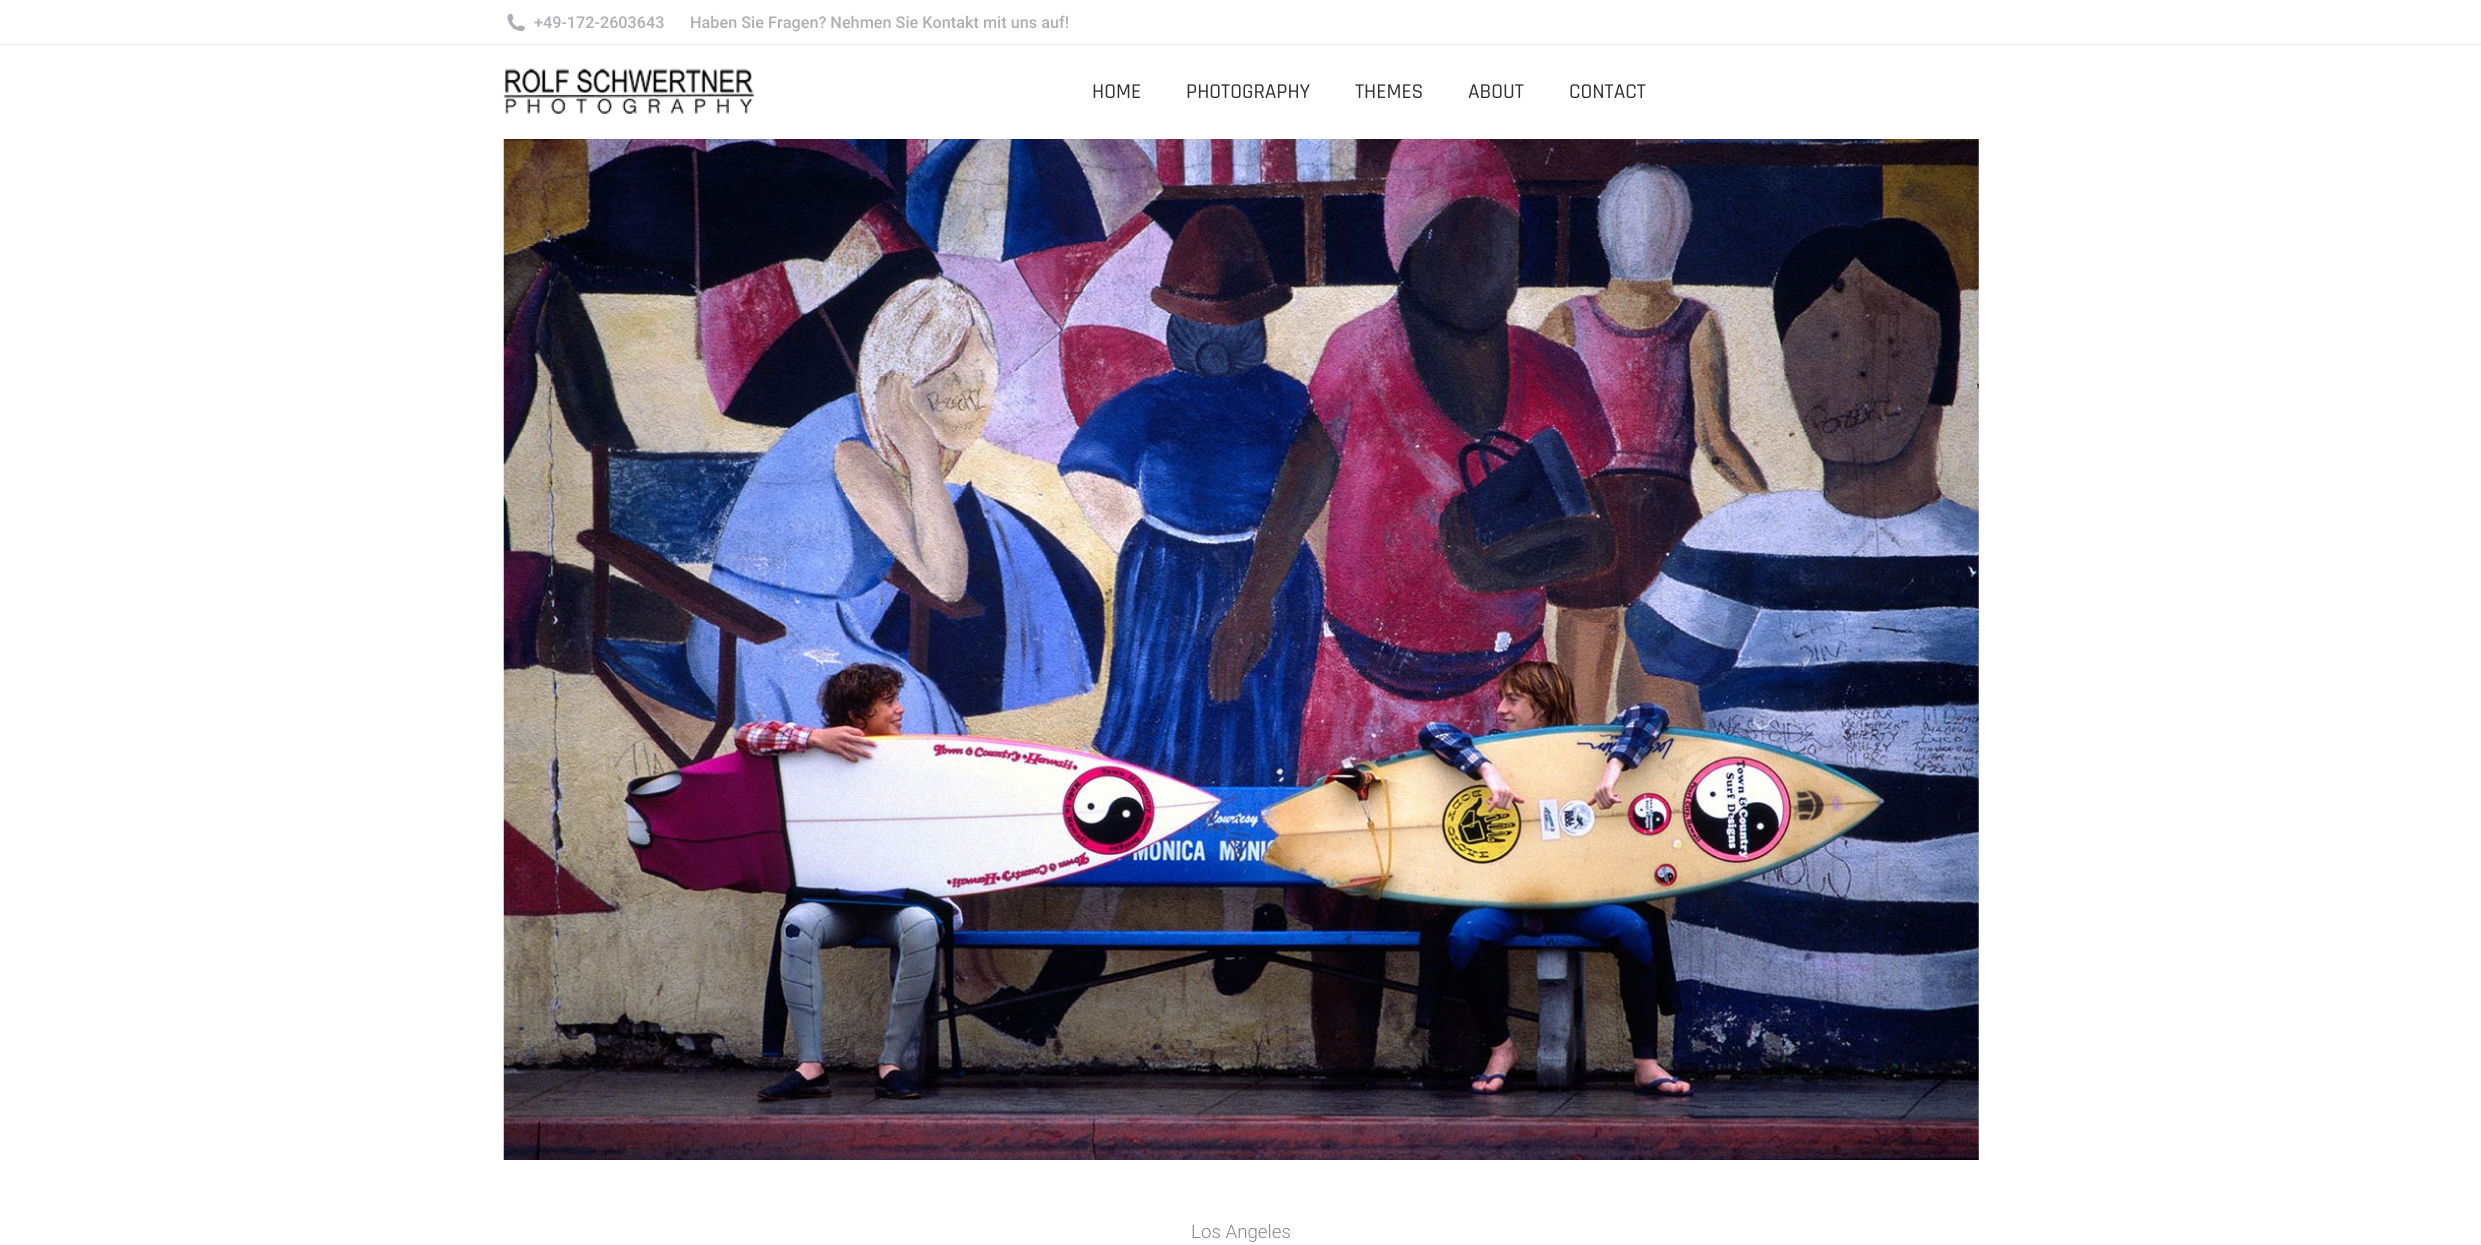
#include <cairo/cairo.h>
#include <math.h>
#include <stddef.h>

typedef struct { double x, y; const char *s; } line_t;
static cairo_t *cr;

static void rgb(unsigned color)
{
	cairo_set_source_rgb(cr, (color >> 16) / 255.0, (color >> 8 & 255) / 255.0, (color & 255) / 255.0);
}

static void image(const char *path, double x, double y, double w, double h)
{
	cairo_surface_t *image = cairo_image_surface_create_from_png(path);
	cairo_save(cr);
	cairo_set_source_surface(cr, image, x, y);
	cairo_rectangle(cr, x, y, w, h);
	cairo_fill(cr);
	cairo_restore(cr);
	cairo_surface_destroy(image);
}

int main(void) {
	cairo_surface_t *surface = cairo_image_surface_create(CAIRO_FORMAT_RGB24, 2481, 1245);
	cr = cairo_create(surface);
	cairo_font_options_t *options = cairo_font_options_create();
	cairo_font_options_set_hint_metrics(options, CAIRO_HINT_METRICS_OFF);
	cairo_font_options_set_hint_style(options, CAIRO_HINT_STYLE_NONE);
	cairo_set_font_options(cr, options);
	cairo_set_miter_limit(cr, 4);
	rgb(0xffffff);
	cairo_paint(cr);
	image("img/1.png", 507, 13, 18, 19);
	rgb(0xe7e7e7);
	cairo_rectangle(cr, 0, 44, 2481, 1);
	cairo_fill(cr);
	image("img/2.png", 503, 68, 251, 46);
	image("img/3.png", 503, 139, 1476, 1021);
	cairo_select_font_face(cr, "Roboto Medium", CAIRO_FONT_SLANT_NORMAL, CAIRO_FONT_WEIGHT_NORMAL);
	cairo_set_font_size(cr, 16.25);
	rgb(0xaeafb5);
	cairo_move_to(cr, 534, 28);
	cairo_show_text(cr, "+49-172-2603643");
	cairo_move_to(cr, 690, 28);
	cairo_show_text(cr, "Haben Sie Fragen? Nehmen Sie Kontakt mit uns auf!");
	cairo_select_font_face(cr, "Rajdhani Medium", CAIRO_FONT_SLANT_NORMAL, CAIRO_FONT_WEIGHT_NORMAL);
	cairo_set_font_size(cr, 21.25);
	rgb(0x333333);
	{
		static const line_t items[] = {
			{1092, 98, "HOME"},
			{1186, 98, "PHOTOGRAPHY"},
			{1355, 98, "THEMES"},
			{1468, 98, "ABOUT"},
			{1569, 98, "CONTACT"},
		};
		for (size_t i = 0; i < sizeof items / sizeof *items; i++) {
			cairo_move_to(cr, items[i].x, items[i].y);
			cairo_show_text(cr, items[i].s);
		}
	}
	cairo_select_font_face(cr, "Roboto Light", CAIRO_FONT_SLANT_NORMAL, CAIRO_FONT_WEIGHT_NORMAL);
	cairo_set_font_size(cr, 18.75);
	rgb(0x85868c);
	cairo_move_to(cr, 1191, 1238);
	cairo_show_text(cr, "Los Angeles");
	cairo_surface_write_to_png(surface, "page.png");
	cairo_font_options_destroy(options);
	cairo_destroy(cr);
	cairo_surface_destroy(surface);
	return 0;
}
